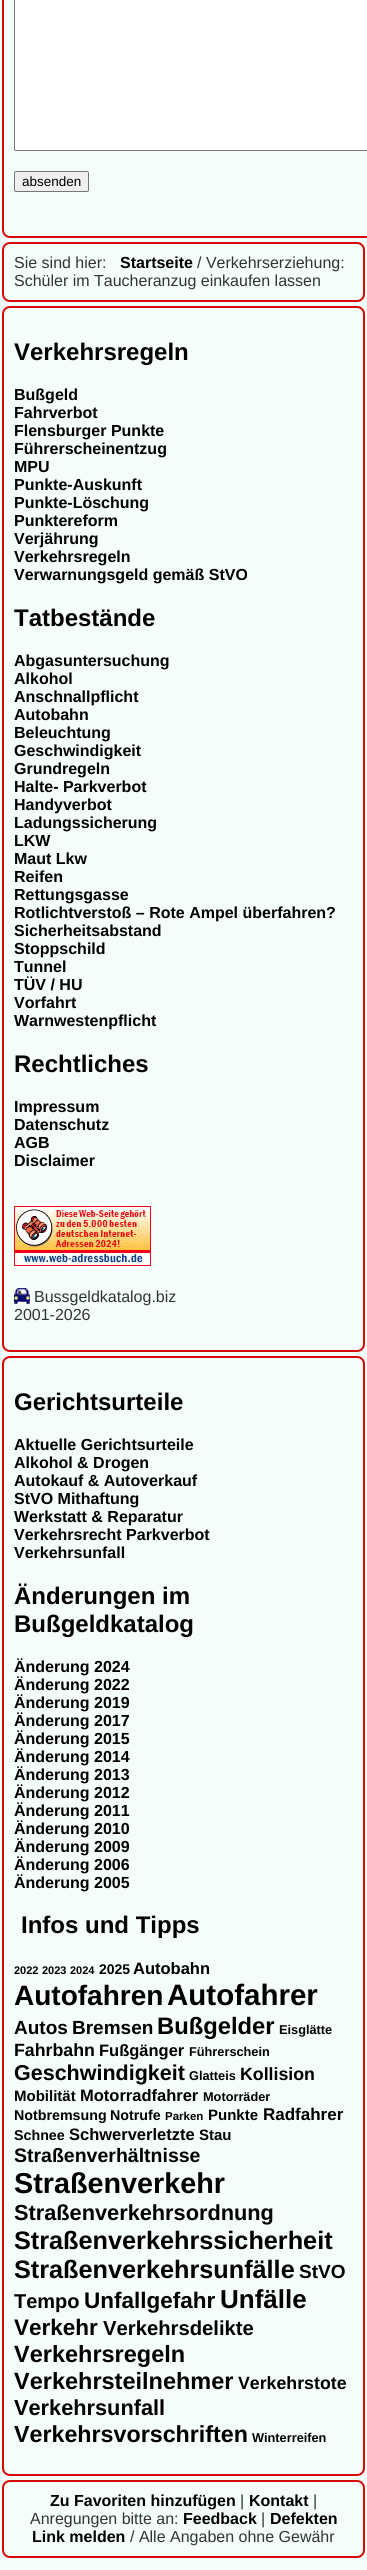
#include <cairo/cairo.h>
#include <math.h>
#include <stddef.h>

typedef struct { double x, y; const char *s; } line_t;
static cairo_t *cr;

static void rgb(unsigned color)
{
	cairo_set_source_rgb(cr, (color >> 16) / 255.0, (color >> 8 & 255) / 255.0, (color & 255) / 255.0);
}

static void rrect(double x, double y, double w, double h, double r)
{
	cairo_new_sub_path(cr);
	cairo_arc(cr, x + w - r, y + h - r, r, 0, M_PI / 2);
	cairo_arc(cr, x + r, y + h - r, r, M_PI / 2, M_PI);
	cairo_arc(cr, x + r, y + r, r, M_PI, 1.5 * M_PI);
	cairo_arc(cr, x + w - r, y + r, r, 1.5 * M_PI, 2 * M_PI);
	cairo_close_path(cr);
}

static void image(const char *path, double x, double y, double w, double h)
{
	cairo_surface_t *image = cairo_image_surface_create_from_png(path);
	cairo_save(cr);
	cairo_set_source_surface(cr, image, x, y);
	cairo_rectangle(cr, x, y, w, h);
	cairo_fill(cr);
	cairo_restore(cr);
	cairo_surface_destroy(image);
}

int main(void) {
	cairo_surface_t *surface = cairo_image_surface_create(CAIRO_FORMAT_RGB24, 367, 2570);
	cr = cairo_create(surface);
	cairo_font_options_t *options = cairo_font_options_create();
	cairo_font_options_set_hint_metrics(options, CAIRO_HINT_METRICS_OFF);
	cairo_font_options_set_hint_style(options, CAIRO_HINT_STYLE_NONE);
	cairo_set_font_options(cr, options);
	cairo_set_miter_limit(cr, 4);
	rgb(0xf4fdfa);
	cairo_paint(cr);
	rrect(3, -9, 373, 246, 7);
	rgb(0xd80903);
	cairo_stroke(cr);
	rgb(0xffffff);
	rrect(14.5, -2.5, 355, 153, 1.5);
	cairo_fill_preserve(cr);
	rgb(0x767676);
	cairo_set_line_width(cr, 1);
	cairo_stroke(cr);
	rgb(0xefefef);
	rrect(14.5, 171.5, 74, 20, 1.5);
	cairo_fill_preserve(cr);
	rgb(0x767676);
	cairo_stroke(cr);
	rrect(3, 243, 361, 58, 7);
	rgb(0xd80903);
	cairo_set_line_width(cr, 2);
	cairo_stroke(cr);
	rrect(3, 307, 361, 1044, 7);
	cairo_stroke(cr);
	image("img/1.png", 14, 1206, 137, 60);
	image("img/2.png", 14, 1288, 16, 16);
	rrect(3, 1357, 361, 1118, 7);
	cairo_stroke(cr);
	rrect(3, 2481, 361, 76, 7);
	cairo_stroke(cr);
	cairo_select_font_face(cr, "Liberation Sans", CAIRO_FONT_SLANT_NORMAL, CAIRO_FONT_WEIGHT_NORMAL);
	cairo_set_font_size(cr, 13.5);
	rgb(0x000000);
	cairo_move_to(cr, 22, 186);
	cairo_show_text(cr, "absenden");
	cairo_set_font_size(cr, 16);
	rgb(0x333333);
	cairo_move_to(cr, 14, 268);
	cairo_show_text(cr, "Sie sind hier:");
	cairo_select_font_face(cr, "Liberation Sans", CAIRO_FONT_SLANT_NORMAL, CAIRO_FONT_WEIGHT_BOLD);
	rgb(0x000000);
	cairo_move_to(cr, 120, 268);
	cairo_show_text(cr, "Startseite");
	cairo_select_font_face(cr, "Liberation Sans", CAIRO_FONT_SLANT_NORMAL, CAIRO_FONT_WEIGHT_NORMAL);
	rgb(0x333333);
	cairo_move_to(cr, 197, 268);
	cairo_show_text(cr, "/ Verkehrserziehung:");
	cairo_move_to(cr, 14, 286);
	cairo_show_text(cr, "Schüler im Taucheranzug einkaufen lassen");
	cairo_select_font_face(cr, "Liberation Sans", CAIRO_FONT_SLANT_NORMAL, CAIRO_FONT_WEIGHT_BOLD);
	cairo_set_font_size(cr, 24);
	rgb(0x000000);
	cairo_move_to(cr, 14, 360);
	cairo_show_text(cr, "Verkehrsregeln");
	cairo_set_font_size(cr, 16);
	{
		static const line_t items[] = {
			{14, 400, "Bußgeld"},
			{14, 418, "Fahrverbot"},
			{14, 436, "Flensburger Punkte"},
			{14, 454, "Führerscheinentzug"},
			{14, 472, "MPU"},
			{14, 490, "Punkte-Auskunft"},
			{14, 508, "Punkte-Löschung"},
			{14, 526, "Punktereform"},
			{14, 544, "Verjährung"},
			{14, 562, "Verkehrsregeln"},
			{14, 580, "Verwarnungsgeld gemäß StVO"},
		};
		for (size_t i = 0; i < sizeof items / sizeof *items; i++) {
			cairo_move_to(cr, items[i].x, items[i].y);
			cairo_show_text(cr, items[i].s);
		}
	}
	cairo_set_font_size(cr, 24);
	cairo_move_to(cr, 14, 626);
	cairo_show_text(cr, "Tatbestände");
	cairo_set_font_size(cr, 16);
	{
		static const line_t items[] = {
			{14, 666, "Abgasuntersuchung"},
			{14, 684, "Alkohol"},
			{14, 702, "Anschnallpflicht"},
			{14, 720, "Autobahn"},
			{14, 738, "Beleuchtung"},
			{14, 756, "Geschwindigkeit"},
			{14, 774, "Grundregeln"},
			{14, 792, "Halte- Parkverbot"},
			{14, 810, "Handyverbot"},
			{14, 828, "Ladungssicherung"},
			{14, 846, "LKW"},
			{14, 864, "Maut Lkw"},
			{14, 882, "Reifen"},
			{14, 900, "Rettungsgasse"},
			{14, 918, "Rotlichtverstoß – Rote Ampel überfahren?"},
			{14, 936, "Sicherheitsabstand"},
			{14, 954, "Stoppschild"},
			{14, 972, "Tunnel"},
			{14, 990, "TÜV / HU"},
			{14, 1008, "Vorfahrt"},
			{14, 1026, "Warnwestenpflicht"},
		};
		for (size_t i = 0; i < sizeof items / sizeof *items; i++) {
			cairo_move_to(cr, items[i].x, items[i].y);
			cairo_show_text(cr, items[i].s);
		}
	}
	cairo_set_font_size(cr, 24);
	cairo_move_to(cr, 14, 1072);
	cairo_show_text(cr, "Rechtliches");
	cairo_set_font_size(cr, 16);
	{
		static const line_t items[] = {
			{14, 1112, "Impressum"},
			{14, 1130, "Datenschutz"},
			{14, 1148, "AGB"},
			{14, 1166, "Disclaimer"},
		};
		for (size_t i = 0; i < sizeof items / sizeof *items; i++) {
			cairo_move_to(cr, items[i].x, items[i].y);
			cairo_show_text(cr, items[i].s);
		}
	}
	cairo_select_font_face(cr, "Liberation Sans", CAIRO_FONT_SLANT_NORMAL, CAIRO_FONT_WEIGHT_NORMAL);
	rgb(0x333333);
	cairo_move_to(cr, 34, 1302);
	cairo_show_text(cr, "Bussgeldkatalog.biz");
	cairo_move_to(cr, 14, 1320);
	cairo_show_text(cr, "2001-2026");
	cairo_select_font_face(cr, "Liberation Sans", CAIRO_FONT_SLANT_NORMAL, CAIRO_FONT_WEIGHT_BOLD);
	cairo_set_font_size(cr, 24);
	rgb(0x000000);
	cairo_move_to(cr, 14, 1410);
	cairo_show_text(cr, "Gerichtsurteile");
	cairo_set_font_size(cr, 16);
	{
		static const line_t items[] = {
			{14, 1450, "Aktuelle Gerichtsurteile"},
			{14, 1468, "Alkohol & Drogen"},
			{14, 1486, "Autokauf & Autoverkauf"},
			{14, 1504, "StVO Mithaftung"},
			{14, 1522, "Werkstatt & Reparatur"},
			{14, 1540, "Verkehrsrecht Parkverbot"},
			{14, 1558, "Verkehrsunfall"},
		};
		for (size_t i = 0; i < sizeof items / sizeof *items; i++) {
			cairo_move_to(cr, items[i].x, items[i].y);
			cairo_show_text(cr, items[i].s);
		}
	}
	cairo_set_font_size(cr, 24);
	cairo_move_to(cr, 14, 1604);
	cairo_show_text(cr, "Änderungen im");
	cairo_move_to(cr, 14, 1632);
	cairo_show_text(cr, "Bußgeldkatalog");
	cairo_set_font_size(cr, 16);
	{
		static const line_t items[] = {
			{14, 1672, "Änderung 2024"},
			{14, 1690, "Änderung 2022"},
			{14, 1708, "Änderung 2019"},
			{14, 1726, "Änderung 2017"},
			{14, 1744, "Änderung 2015"},
			{14, 1762, "Änderung 2014"},
			{14, 1780, "Änderung 2013"},
			{14, 1798, "Änderung 2012"},
			{14, 1816, "Änderung 2011"},
			{14, 1834, "Änderung 2010"},
			{14, 1852, "Änderung 2009"},
			{14, 1870, "Änderung 2006"},
			{14, 1888, "Änderung 2005"},
		};
		for (size_t i = 0; i < sizeof items / sizeof *items; i++) {
			cairo_move_to(cr, items[i].x, items[i].y);
			cairo_show_text(cr, items[i].s);
		}
	}
	cairo_set_font_size(cr, 24);
	cairo_move_to(cr, 21, 1933);
	cairo_show_text(cr, "Infos und Tipps");
	cairo_set_font_size(cr, 11);
	{
		static const line_t items[] = {
			{14, 1974, "2022"},
			{42, 1974, "2023"},
			{70, 1974, "2024"},
		};
		for (size_t i = 0; i < sizeof items / sizeof *items; i++) {
			cairo_move_to(cr, items[i].x, items[i].y);
			cairo_show_text(cr, items[i].s);
		}
	}
	cairo_set_font_size(cr, 14);
	cairo_move_to(cr, 99, 1974);
	cairo_show_text(cr, "2025");
	cairo_set_font_size(cr, 16.5);
	cairo_move_to(cr, 133, 1974);
	cairo_show_text(cr, "Autobahn");
	cairo_set_font_size(cr, 28);
	cairo_move_to(cr, 14, 2005);
	cairo_show_text(cr, "Autofahren");
	cairo_set_font_size(cr, 29.5);
	cairo_move_to(cr, 167, 2005);
	cairo_show_text(cr, "Autofahrer");
	cairo_set_font_size(cr, 19);
	cairo_move_to(cr, 14, 2034);
	cairo_show_text(cr, "Autos");
	cairo_move_to(cr, 72, 2034);
	cairo_show_text(cr, "Bremsen");
	cairo_set_font_size(cr, 23.75);
	cairo_move_to(cr, 157, 2034);
	cairo_show_text(cr, "Bußgelder");
	cairo_set_font_size(cr, 12.75);
	cairo_move_to(cr, 279, 2034);
	cairo_show_text(cr, "Eisglätte");
	cairo_set_font_size(cr, 17.75);
	cairo_move_to(cr, 14, 2056);
	cairo_show_text(cr, "Fahrbahn");
	cairo_set_font_size(cr, 16.5);
	cairo_move_to(cr, 99, 2056);
	cairo_show_text(cr, "Fußgänger");
	cairo_set_font_size(cr, 12.75);
	cairo_move_to(cr, 189, 2056);
	cairo_show_text(cr, "Führerschein");
	cairo_set_font_size(cr, 21.5);
	cairo_move_to(cr, 14, 2080);
	cairo_show_text(cr, "Geschwindigkeit");
	cairo_set_font_size(cr, 12.75);
	cairo_move_to(cr, 189, 2080);
	cairo_show_text(cr, "Glatteis");
	cairo_set_font_size(cr, 17.75);
	cairo_move_to(cr, 240, 2080);
	cairo_show_text(cr, "Kollision");
	cairo_set_font_size(cr, 15);
	cairo_move_to(cr, 14, 2101);
	cairo_show_text(cr, "Mobilität");
	cairo_set_font_size(cr, 16.5);
	cairo_move_to(cr, 80, 2101);
	cairo_show_text(cr, "Motorradfahrer");
	cairo_set_font_size(cr, 12.75);
	cairo_move_to(cr, 203, 2101);
	cairo_show_text(cr, "Motorräder");
	cairo_set_font_size(cr, 14.25);
	cairo_move_to(cr, 14, 2120);
	cairo_show_text(cr, "Notbremsung");
	cairo_move_to(cr, 110, 2120);
	cairo_show_text(cr, "Notrufe");
	cairo_set_font_size(cr, 11.5);
	cairo_move_to(cr, 165, 2120);
	cairo_show_text(cr, "Parken");
	cairo_set_font_size(cr, 15);
	cairo_move_to(cr, 208, 2120);
	cairo_show_text(cr, "Punkte");
	cairo_set_font_size(cr, 17);
	cairo_move_to(cr, 263, 2120);
	cairo_show_text(cr, "Radfahrer");
	cairo_set_font_size(cr, 14.25);
	cairo_move_to(cr, 14, 2140);
	cairo_show_text(cr, "Schnee");
	cairo_set_font_size(cr, 16.5);
	cairo_move_to(cr, 69, 2140);
	cairo_show_text(cr, "Schwerverletzte");
	cairo_set_font_size(cr, 15);
	cairo_move_to(cr, 199, 2140);
	cairo_show_text(cr, "Stau");
	cairo_set_font_size(cr, 19.5);
	cairo_move_to(cr, 14, 2162);
	cairo_show_text(cr, "Straßenverhältnisse");
	cairo_set_font_size(cr, 28.75);
	cairo_move_to(cr, 14, 2193);
	cairo_show_text(cr, "Straßenverkehr");
	cairo_set_font_size(cr, 21.75);
	cairo_move_to(cr, 14, 2220);
	cairo_show_text(cr, "Straßenverkehrsordnung");
	cairo_set_font_size(cr, 25.25);
	cairo_move_to(cr, 14, 2249);
	cairo_show_text(cr, "Straßenverkehrssicherheit");
	cairo_move_to(cr, 14, 2278);
	cairo_show_text(cr, "Straßenverkehrsunfälle");
	cairo_set_font_size(cr, 19);
	cairo_move_to(cr, 299, 2278);
	cairo_show_text(cr, "StVO");
	cairo_set_font_size(cr, 20);
	cairo_move_to(cr, 14, 2308);
	cairo_show_text(cr, "Tempo");
	cairo_set_font_size(cr, 22.5);
	cairo_move_to(cr, 84, 2308);
	cairo_show_text(cr, "Unfallgefahr");
	cairo_set_font_size(cr, 26);
	cairo_move_to(cr, 220, 2308);
	cairo_show_text(cr, "Unfälle");
	cairo_set_font_size(cr, 22.5);
	cairo_move_to(cr, 14, 2335);
	cairo_show_text(cr, "Verkehr");
	cairo_set_font_size(cr, 20.25);
	cairo_move_to(cr, 103, 2335);
	cairo_show_text(cr, "Verkehrsdelikte");
	cairo_set_font_size(cr, 23.5);
	cairo_move_to(cr, 14, 2362);
	cairo_show_text(cr, "Verkehrsregeln");
	cairo_move_to(cr, 14, 2389);
	cairo_show_text(cr, "Verkehrsteilnehmer");
	cairo_set_font_size(cr, 17.75);
	cairo_move_to(cr, 238, 2389);
	cairo_show_text(cr, "Verkehrstote");
	cairo_set_font_size(cr, 21.75);
	cairo_move_to(cr, 14, 2415);
	cairo_show_text(cr, "Verkehrsunfall");
	cairo_set_font_size(cr, 23.25);
	cairo_move_to(cr, 14, 2442);
	cairo_show_text(cr, "Verkehrsvorschriften");
	cairo_set_font_size(cr, 12.75);
	cairo_move_to(cr, 252, 2442);
	cairo_show_text(cr, "Winterreifen");
	cairo_set_font_size(cr, 16);
	cairo_move_to(cr, 50, 2506);
	cairo_show_text(cr, "Zu Favoriten hinzufügen");
	cairo_select_font_face(cr, "Liberation Sans", CAIRO_FONT_SLANT_NORMAL, CAIRO_FONT_WEIGHT_NORMAL);
	rgb(0x333333);
	cairo_move_to(cr, 240, 2506);
	cairo_show_text(cr, "|");
	cairo_select_font_face(cr, "Liberation Sans", CAIRO_FONT_SLANT_NORMAL, CAIRO_FONT_WEIGHT_BOLD);
	rgb(0x000000);
	cairo_move_to(cr, 249, 2506);
	cairo_show_text(cr, "Kontakt");
	cairo_select_font_face(cr, "Liberation Sans", CAIRO_FONT_SLANT_NORMAL, CAIRO_FONT_WEIGHT_NORMAL);
	rgb(0x333333);
	cairo_move_to(cr, 313, 2506);
	cairo_show_text(cr, "|");
	cairo_move_to(cr, 30, 2524);
	cairo_show_text(cr, "Anregungen bitte an:");
	cairo_select_font_face(cr, "Liberation Sans", CAIRO_FONT_SLANT_NORMAL, CAIRO_FONT_WEIGHT_BOLD);
	rgb(0x000000);
	cairo_move_to(cr, 183, 2524);
	cairo_show_text(cr, "Feedback");
	cairo_select_font_face(cr, "Liberation Sans", CAIRO_FONT_SLANT_NORMAL, CAIRO_FONT_WEIGHT_NORMAL);
	rgb(0x333333);
	cairo_move_to(cr, 261, 2524);
	cairo_show_text(cr, "|");
	cairo_select_font_face(cr, "Liberation Sans", CAIRO_FONT_SLANT_NORMAL, CAIRO_FONT_WEIGHT_BOLD);
	rgb(0x000000);
	cairo_move_to(cr, 270, 2524);
	cairo_show_text(cr, "Defekten");
	cairo_move_to(cr, 32, 2542);
	cairo_show_text(cr, "Link melden");
	cairo_select_font_face(cr, "Liberation Sans", CAIRO_FONT_SLANT_NORMAL, CAIRO_FONT_WEIGHT_NORMAL);
	rgb(0x333333);
	cairo_move_to(cr, 130, 2542);
	cairo_show_text(cr, "/ Alle Angaben ohne Gewähr");
	cairo_surface_write_to_png(surface, "page.png");
	cairo_font_options_destroy(options);
	cairo_destroy(cr);
	cairo_surface_destroy(surface);
	return 0;
}
